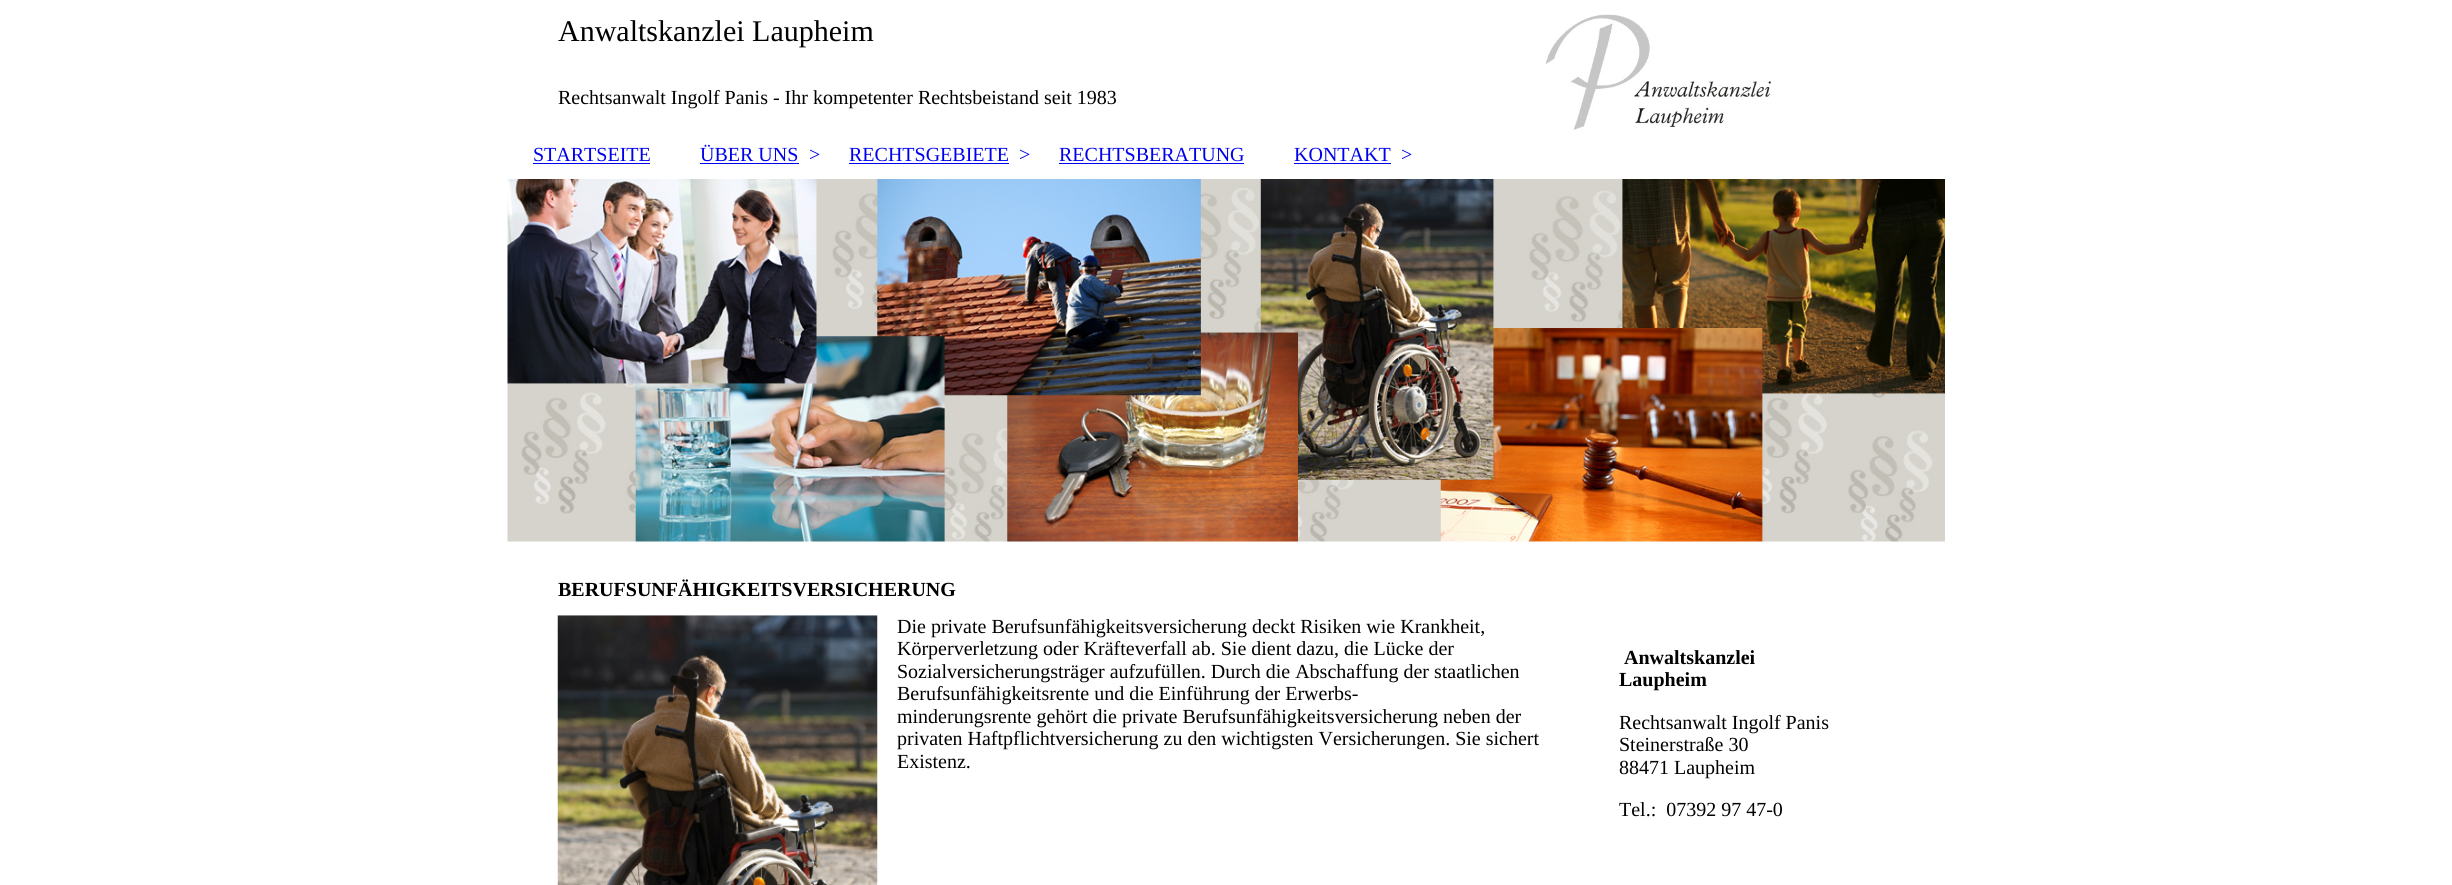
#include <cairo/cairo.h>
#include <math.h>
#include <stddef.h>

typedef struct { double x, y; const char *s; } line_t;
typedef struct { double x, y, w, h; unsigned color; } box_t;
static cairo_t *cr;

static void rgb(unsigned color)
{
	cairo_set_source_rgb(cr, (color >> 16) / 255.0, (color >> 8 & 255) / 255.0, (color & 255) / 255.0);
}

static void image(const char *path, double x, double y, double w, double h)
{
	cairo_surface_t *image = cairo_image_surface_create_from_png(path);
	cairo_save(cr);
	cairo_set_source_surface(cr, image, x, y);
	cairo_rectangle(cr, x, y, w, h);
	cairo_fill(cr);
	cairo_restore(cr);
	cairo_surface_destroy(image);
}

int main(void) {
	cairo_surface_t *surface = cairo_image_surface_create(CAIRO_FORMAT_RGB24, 2452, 885);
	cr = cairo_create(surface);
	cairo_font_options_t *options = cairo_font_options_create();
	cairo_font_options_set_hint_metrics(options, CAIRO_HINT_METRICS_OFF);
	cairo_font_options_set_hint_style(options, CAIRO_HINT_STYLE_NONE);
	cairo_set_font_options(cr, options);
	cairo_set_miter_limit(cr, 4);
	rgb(0xffffff);
	cairo_paint(cr);
	image("img/1.png", 1545, 14, 226, 116);
	{
		static const box_t items[] = {
			{533, 163, 117, 1, 0x0000ee},
			{700, 163, 99, 1, 0x0000ee},
			{849, 163, 160, 1, 0x0000ee},
			{1059, 163, 185, 1, 0x0000ee},
			{1294, 163, 97, 1, 0x0000ee},
		};
		for (size_t i = 0; i < sizeof items / sizeof *items; i++) {
			rgb(items[i].color);
			cairo_rectangle(cr, items[i].x, items[i].y, items[i].w, items[i].h);
			cairo_fill(cr);
		}
	}
	image("img/2.png", 507, 179, 1438, 363);
	image("img/3.png", 557, 615, 321, 270);
	cairo_select_font_face(cr, "Liberation Serif", CAIRO_FONT_SLANT_NORMAL, CAIRO_FONT_WEIGHT_NORMAL);
	cairo_set_font_size(cr, 30);
	rgb(0x000000);
	cairo_move_to(cr, 558, 41);
	cairo_show_text(cr, "Anwaltskanzlei Laupheim");
	cairo_set_font_size(cr, 20);
	cairo_move_to(cr, 558, 104);
	cairo_show_text(cr, "Rechtsanwalt Ingolf Panis - Ihr kompetenter Rechtsbeistand seit 1983");
	rgb(0x0000ee);
	{
		static const line_t items[] = {
			{533, 161, "STARTSEITE"},
			{700, 161, "ÜBER UNS"},
			{809, 161, ">"},
			{849, 161, "RECHTSGEBIETE"},
			{1019, 161, ">"},
			{1059, 161, "RECHTSBERATUNG"},
			{1294, 161, "KONTAKT"},
			{1401, 161, ">"},
		};
		for (size_t i = 0; i < sizeof items / sizeof *items; i++) {
			cairo_move_to(cr, items[i].x, items[i].y);
			cairo_show_text(cr, items[i].s);
		}
	}
	cairo_select_font_face(cr, "Liberation Serif", CAIRO_FONT_SLANT_NORMAL, CAIRO_FONT_WEIGHT_BOLD);
	rgb(0x000000);
	cairo_move_to(cr, 558, 596);
	cairo_show_text(cr, "BERUFSUNFÄHIGKEITSVERSICHERUNG");
	cairo_select_font_face(cr, "Liberation Serif", CAIRO_FONT_SLANT_NORMAL, CAIRO_FONT_WEIGHT_NORMAL);
	{
		static const line_t items[] = {
			{897, 633, "Die private Berufsunfähigkeitsversicherung deckt Risiken wie Krankheit,"},
			{897, 655, "Körperverletzung oder Kräfteverfall ab. Sie dient dazu, die Lücke der"},
			{897, 678, "Sozialversicherungsträger aufzufüllen. Durch die Abschaffung der staatlichen"},
			{897, 700, "Berufsunfähigkeitsrente und die Einführung der Erwerbs-"},
			{897, 723, "minderungsrente gehört die private Berufsunfähigkeitsversicherung neben der"},
			{897, 745, "privaten Haftpflichtversicherung zu den wichtigsten Versicherungen. Sie sichert"},
			{897, 768, "Existenz."},
		};
		for (size_t i = 0; i < sizeof items / sizeof *items; i++) {
			cairo_move_to(cr, items[i].x, items[i].y);
			cairo_show_text(cr, items[i].s);
		}
	}
	cairo_select_font_face(cr, "Liberation Serif", CAIRO_FONT_SLANT_NORMAL, CAIRO_FONT_WEIGHT_BOLD);
	cairo_move_to(cr, 1624, 664);
	cairo_show_text(cr, "Anwaltskanzlei");
	cairo_move_to(cr, 1619, 686);
	cairo_show_text(cr, "Laupheim");
	cairo_select_font_face(cr, "Liberation Serif", CAIRO_FONT_SLANT_NORMAL, CAIRO_FONT_WEIGHT_NORMAL);
	{
		static const line_t items[] = {
			{1619, 729, "Rechtsanwalt Ingolf Panis"},
			{1619, 751, "Steinerstraße 30"},
			{1619, 774, "88471 Laupheim"},
			{1619, 816, "Tel.:  07392 97 47-0"},
		};
		for (size_t i = 0; i < sizeof items / sizeof *items; i++) {
			cairo_move_to(cr, items[i].x, items[i].y);
			cairo_show_text(cr, items[i].s);
		}
	}
	cairo_surface_write_to_png(surface, "page.png");
	cairo_font_options_destroy(options);
	cairo_destroy(cr);
	cairo_surface_destroy(surface);
	return 0;
}
